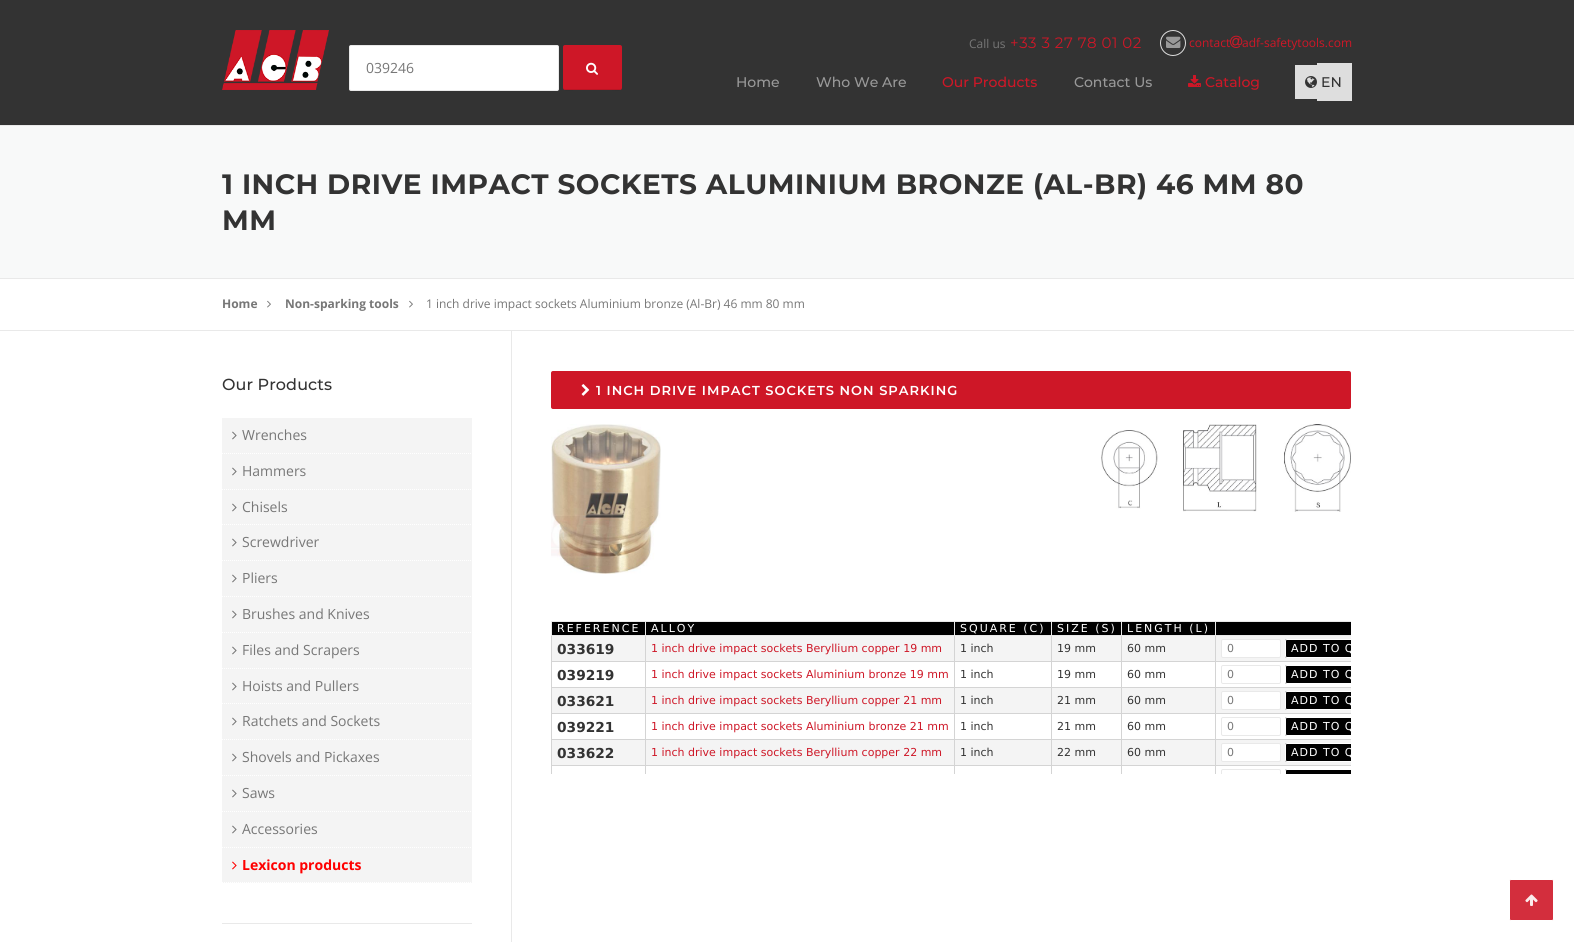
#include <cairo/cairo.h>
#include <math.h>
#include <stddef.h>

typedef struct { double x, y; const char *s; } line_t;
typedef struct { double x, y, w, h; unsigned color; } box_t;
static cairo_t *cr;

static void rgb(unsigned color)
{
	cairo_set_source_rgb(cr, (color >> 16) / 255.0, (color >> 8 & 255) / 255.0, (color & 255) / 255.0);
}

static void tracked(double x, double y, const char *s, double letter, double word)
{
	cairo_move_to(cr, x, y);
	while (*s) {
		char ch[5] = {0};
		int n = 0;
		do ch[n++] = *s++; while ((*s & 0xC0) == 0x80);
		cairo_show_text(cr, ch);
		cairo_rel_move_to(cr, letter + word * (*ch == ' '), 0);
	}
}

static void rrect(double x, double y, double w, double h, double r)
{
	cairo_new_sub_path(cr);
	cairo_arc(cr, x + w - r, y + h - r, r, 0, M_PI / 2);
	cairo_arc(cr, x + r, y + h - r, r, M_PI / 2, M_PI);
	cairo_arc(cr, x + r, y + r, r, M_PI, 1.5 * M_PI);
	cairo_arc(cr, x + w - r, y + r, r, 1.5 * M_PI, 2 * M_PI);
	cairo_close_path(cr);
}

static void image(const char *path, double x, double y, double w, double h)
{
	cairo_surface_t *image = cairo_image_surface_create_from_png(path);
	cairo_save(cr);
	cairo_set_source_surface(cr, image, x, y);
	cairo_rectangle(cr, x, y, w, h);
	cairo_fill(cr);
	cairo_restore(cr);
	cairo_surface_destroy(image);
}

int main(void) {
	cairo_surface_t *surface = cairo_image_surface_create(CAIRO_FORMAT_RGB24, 1574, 942);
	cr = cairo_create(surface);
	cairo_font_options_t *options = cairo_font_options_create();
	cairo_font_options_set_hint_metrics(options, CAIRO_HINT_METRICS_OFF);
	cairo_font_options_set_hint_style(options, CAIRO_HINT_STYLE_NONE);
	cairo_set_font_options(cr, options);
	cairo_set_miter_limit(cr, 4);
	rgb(0xffffff);
	cairo_paint(cr);
	rgb(0x333333);
	cairo_rectangle(cr, 0, 0, 1574, 125);
	cairo_fill(cr);
	image("img/1.png", 222, 30, 107, 60);
	cairo_arc(cr, 1173, 43, 12.5, 0, 2 * M_PI);
	rgb(0xdddddd);
	cairo_set_line_width(cr, 1);
	cairo_stroke(cr);
	image("img/2.png", 1166, 36, 15, 12);
	rgb(0xffffff);
	rrect(349.5, 45.5, 209, 45, 1.5);
	cairo_fill_preserve(cr);
	rgb(0xe9e9e9);
	cairo_stroke(cr);
	rgb(0xce1727);
	rrect(563, 45, 59, 45, 2);
	cairo_fill(cr);
	cairo_set_source_rgba(cr, 0, 0, 0, 0.1);
	cairo_new_path(cr);
	cairo_move_to(cr, 563, 87);
	cairo_curve_to(cr, 563, 92, 570, 90, 574, 90);
	cairo_line_to(cr, 611, 90);
	cairo_curve_to(cr, 615, 90, 622, 92, 622, 87);
	cairo_curve_to(cr, 622, 88, 621, 89, 620, 89);
	cairo_line_to(cr, 565, 89);
	cairo_curve_to(cr, 564, 89, 563, 88, 563, 87);
	cairo_close_path(cr);
	cairo_fill(cr);
	image("img/4.png", 586, 62, 12, 13);
	image("img/5.png", 1188, 75, 13, 12);
	rgb(0xdedede);
	cairo_rectangle(cr, 1295, 65, 22, 34);
	cairo_fill(cr);
	cairo_rectangle(cr, 1317, 63, 35, 38);
	cairo_fill(cr);
	image("img/6.png", 1305, 76, 12, 12);
	{
		static const box_t items[] = {
			{0, 126, 1574, 152, 0xf8f9f9},
			{0, 125, 1574, 1, 0xe9e9e9},
			{0, 278, 1574, 1, 0xe9e9e9},
			{0, 330, 1574, 1, 0xe9e9e9},
		};
		for (size_t i = 0; i < sizeof items / sizeof *items; i++) {
			rgb(items[i].color);
			cairo_rectangle(cr, items[i].x, items[i].y, items[i].w, items[i].h);
			cairo_fill(cr);
		}
	}
	image("img/7.png", 267, 300, 4, 8);
	image("img/7.png", 409, 300, 4, 8);
	cairo_rectangle(cr, 511, 331, 1, 611);
	cairo_fill(cr);
	rgb(0xf4f4f4);
	cairo_rectangle(cr, 222, 418, 250, 465);
	cairo_fill(cr);
	cairo_new_path(cr);
	cairo_move_to(cr, 222, 453.5);
	cairo_line_to(cr, 472, 453.5);
	rgb(0xffffff);
	cairo_set_dash(cr, (double[]){1, 1}, 2, 0);
	cairo_stroke(cr);
	image("img/8.png", 232, 431, 5, 9);
	cairo_new_path(cr);
	cairo_move_to(cr, 222, 489.5);
	cairo_line_to(cr, 472, 489.5);
	cairo_stroke(cr);
	image("img/8.png", 232, 467, 5, 9);
	cairo_new_path(cr);
	cairo_move_to(cr, 222, 524.5);
	cairo_line_to(cr, 472, 524.5);
	cairo_stroke(cr);
	image("img/8.png", 232, 503, 5, 9);
	cairo_new_path(cr);
	cairo_move_to(cr, 222, 560.5);
	cairo_line_to(cr, 472, 560.5);
	cairo_stroke(cr);
	image("img/8.png", 232, 538, 5, 9);
	cairo_new_path(cr);
	cairo_move_to(cr, 222, 596.5);
	cairo_line_to(cr, 472, 596.5);
	cairo_stroke(cr);
	image("img/8.png", 232, 574, 5, 9);
	cairo_new_path(cr);
	cairo_move_to(cr, 222, 632.5);
	cairo_line_to(cr, 472, 632.5);
	cairo_stroke(cr);
	image("img/8.png", 232, 610, 5, 9);
	cairo_new_path(cr);
	cairo_move_to(cr, 222, 668.5);
	cairo_line_to(cr, 472, 668.5);
	cairo_stroke(cr);
	image("img/8.png", 232, 646, 5, 9);
	cairo_new_path(cr);
	cairo_move_to(cr, 222, 703.5);
	cairo_line_to(cr, 472, 703.5);
	cairo_stroke(cr);
	image("img/8.png", 232, 682, 5, 9);
	cairo_new_path(cr);
	cairo_move_to(cr, 222, 739.5);
	cairo_line_to(cr, 472, 739.5);
	cairo_stroke(cr);
	image("img/8.png", 232, 717, 5, 9);
	cairo_new_path(cr);
	cairo_move_to(cr, 222, 775.5);
	cairo_line_to(cr, 472, 775.5);
	cairo_stroke(cr);
	image("img/8.png", 232, 753, 5, 9);
	cairo_new_path(cr);
	cairo_move_to(cr, 222, 811.5);
	cairo_line_to(cr, 472, 811.5);
	cairo_stroke(cr);
	image("img/8.png", 232, 789, 5, 9);
	cairo_new_path(cr);
	cairo_move_to(cr, 222, 847.5);
	cairo_line_to(cr, 472, 847.5);
	cairo_stroke(cr);
	image("img/8.png", 232, 825, 5, 9);
	cairo_new_path(cr);
	cairo_move_to(cr, 222, 882.5);
	cairo_line_to(cr, 472, 882.5);
	cairo_stroke(cr);
	image("img/9.png", 232, 861, 5, 9);
	rgb(0xe9e9e9);
	cairo_rectangle(cr, 222, 923, 250, 1);
	cairo_fill(cr);
	rgb(0xce1727);
	rrect(551, 371, 800, 38, 2);
	cairo_fill(cr);
	image("img/10.png", 581, 384, 9, 12);
	image("img/11.png", 551, 424, 110, 150);
	image("img/12.png", 1101, 424, 250, 88);
	{
		static const box_t items[] = {
			{551, 636, 1, 138, 0xd4d4d4},
			{552, 622, 93, 13, 0x000000},
			{1215, 621, 136, 1, 0xe9e9e9},
			{552, 636, 799, 25, 0xf4f4f4},
			{1215, 661, 136, 1, 0xd4d4d4},
			{1215, 687, 136, 1, 0xd4d4d4},
			{552, 688, 799, 25, 0xf4f4f4},
			{1215, 713, 136, 1, 0xd4d4d4},
			{1215, 739, 136, 1, 0xd4d4d4},
			{552, 740, 799, 25, 0xf4f4f4},
			{1215, 765, 136, 1, 0xd4d4d4},
			{1215, 765, 1, 9, 0xd4d4d4},
			{1121, 765, 95, 1, 0xd4d4d4},
			{1215, 739, 1, 27, 0xd4d4d4},
			{1121, 739, 95, 1, 0xd4d4d4},
			{1215, 713, 1, 27, 0xd4d4d4},
			{1121, 713, 95, 1, 0xd4d4d4},
			{1215, 687, 1, 27, 0xd4d4d4},
			{1121, 687, 95, 1, 0xd4d4d4},
			{1215, 661, 1, 27, 0xd4d4d4},
			{1121, 661, 95, 1, 0xd4d4d4},
			{1215, 635, 1, 27, 0xd4d4d4},
			{1215, 635, 136, 1, 0xe9e9e9},
			{1215, 621, 1, 15, 0xe9e9e9},
			{1121, 621, 95, 1, 0xe9e9e9},
			{1121, 765, 1, 9, 0xd4d4d4},
			{1051, 765, 71, 1, 0xd4d4d4},
			{1121, 739, 1, 27, 0xd4d4d4},
			{1051, 739, 71, 1, 0xd4d4d4},
			{1121, 713, 1, 27, 0xd4d4d4},
			{1051, 713, 71, 1, 0xd4d4d4},
			{1121, 687, 1, 27, 0xd4d4d4},
			{1051, 687, 71, 1, 0xd4d4d4},
			{1121, 661, 1, 27, 0xd4d4d4},
			{1051, 661, 71, 1, 0xd4d4d4},
			{1121, 635, 1, 27, 0xd4d4d4},
			{1121, 635, 95, 1, 0xe9e9e9},
			{1121, 621, 1, 15, 0xe9e9e9},
			{1051, 621, 71, 1, 0xe9e9e9},
			{1051, 765, 1, 9, 0xd4d4d4},
			{954, 765, 98, 1, 0xd4d4d4},
			{1051, 739, 1, 27, 0xd4d4d4},
			{954, 739, 98, 1, 0xd4d4d4},
			{1051, 713, 1, 27, 0xd4d4d4},
			{954, 713, 98, 1, 0xd4d4d4},
			{1051, 687, 1, 27, 0xd4d4d4},
			{954, 687, 98, 1, 0xd4d4d4},
			{1051, 661, 1, 27, 0xd4d4d4},
			{954, 661, 98, 1, 0xd4d4d4},
			{1051, 635, 1, 27, 0xd4d4d4},
			{1051, 635, 71, 1, 0xe9e9e9},
			{1051, 621, 1, 15, 0xe9e9e9},
			{954, 621, 98, 1, 0xe9e9e9},
			{954, 765, 1, 9, 0xd4d4d4},
			{645, 765, 310, 1, 0xd4d4d4},
			{954, 739, 1, 27, 0xd4d4d4},
			{645, 739, 310, 1, 0xd4d4d4},
			{954, 713, 1, 27, 0xd4d4d4},
			{645, 713, 310, 1, 0xd4d4d4},
			{954, 687, 1, 27, 0xd4d4d4},
			{645, 687, 310, 1, 0xd4d4d4},
			{954, 661, 1, 27, 0xd4d4d4},
			{645, 661, 310, 1, 0xd4d4d4},
			{954, 635, 1, 27, 0xd4d4d4},
			{954, 635, 98, 1, 0xe9e9e9},
			{954, 621, 1, 15, 0xe9e9e9},
			{645, 621, 310, 1, 0xe9e9e9},
			{645, 765, 1, 9, 0xd4d4d4},
			{551, 765, 95, 1, 0xd4d4d4},
			{645, 739, 1, 27, 0xd4d4d4},
			{551, 739, 95, 1, 0xd4d4d4},
			{645, 713, 1, 27, 0xd4d4d4},
			{551, 713, 95, 1, 0xd4d4d4},
			{645, 687, 1, 27, 0xd4d4d4},
			{551, 687, 95, 1, 0xd4d4d4},
			{645, 661, 1, 27, 0xd4d4d4},
			{551, 661, 95, 1, 0xd4d4d4},
			{645, 635, 1, 27, 0xd4d4d4},
			{645, 635, 310, 1, 0xe9e9e9},
			{645, 621, 1, 15, 0xe9e9e9},
			{551, 621, 95, 1, 0xe9e9e9},
			{551, 635, 95, 1, 0xe9e9e9},
			{551, 621, 1, 15, 0xe9e9e9},
			{646, 622, 308, 13, 0x000000},
			{955, 622, 96, 13, 0x000000},
			{1052, 622, 69, 13, 0x000000},
			{1122, 622, 93, 13, 0x000000},
			{1216, 622, 135, 13, 0x000000},
		};
		for (size_t i = 0; i < sizeof items / sizeof *items; i++) {
			rgb(items[i].color);
			cairo_rectangle(cr, items[i].x, items[i].y, items[i].w, items[i].h);
			cairo_fill(cr);
		}
	}
	rgb(0xffffff);
	rrect(1221.5, 639.5, 59, 18, 1.5);
	cairo_fill_preserve(cr);
	rgb(0xe9e9e9);
	cairo_set_dash(cr, NULL, 0, 0);
	cairo_stroke(cr);
	rgb(0x000000);
	cairo_new_path(cr);
	cairo_move_to(cr, 1287, 639);
	cairo_line_to(cr, 1351, 639);
	cairo_line_to(cr, 1351, 658);
	cairo_line_to(cr, 1287, 658);
	cairo_curve_to(cr, 1286, 658, 1285, 657, 1285, 656);
	cairo_line_to(cr, 1285, 641);
	cairo_curve_to(cr, 1285, 640, 1286, 639, 1287, 639);
	cairo_close_path(cr);
	cairo_fill(cr);
	cairo_save(cr);
	cairo_rectangle(cr, 551, 621, 800, 153);
	cairo_clip(cr);
	rrect(1285.5, 639.5, 109, 18, 1.5);
	rgb(0xffffff);
	cairo_stroke(cr);
	cairo_restore(cr);
	rrect(1221.5, 665.5, 59, 18, 1.5);
	rgb(0xe9e9e9);
	cairo_stroke(cr);
	rgb(0x000000);
	cairo_new_path(cr);
	cairo_move_to(cr, 1287, 665);
	cairo_line_to(cr, 1351, 665);
	cairo_line_to(cr, 1351, 684);
	cairo_line_to(cr, 1287, 684);
	cairo_curve_to(cr, 1286, 684, 1285, 683, 1285, 682);
	cairo_line_to(cr, 1285, 667);
	cairo_curve_to(cr, 1285, 666, 1286, 665, 1287, 665);
	cairo_close_path(cr);
	cairo_fill(cr);
	cairo_save(cr);
	cairo_rectangle(cr, 551, 621, 800, 153);
	cairo_clip(cr);
	rrect(1285.5, 665.5, 109, 18, 1.5);
	rgb(0xffffff);
	cairo_stroke(cr);
	cairo_restore(cr);
	rgb(0xffffff);
	rrect(1221.5, 691.5, 59, 18, 1.5);
	cairo_fill_preserve(cr);
	rgb(0xe9e9e9);
	cairo_stroke(cr);
	rgb(0x000000);
	cairo_new_path(cr);
	cairo_move_to(cr, 1287, 691);
	cairo_line_to(cr, 1351, 691);
	cairo_line_to(cr, 1351, 710);
	cairo_line_to(cr, 1287, 710);
	cairo_curve_to(cr, 1286, 710, 1285, 709, 1285, 708);
	cairo_line_to(cr, 1285, 693);
	cairo_curve_to(cr, 1285, 692, 1286, 691, 1287, 691);
	cairo_close_path(cr);
	cairo_fill(cr);
	cairo_save(cr);
	cairo_rectangle(cr, 551, 621, 800, 153);
	cairo_clip(cr);
	rrect(1285.5, 691.5, 109, 18, 1.5);
	rgb(0xffffff);
	cairo_stroke(cr);
	cairo_restore(cr);
	rrect(1221.5, 717.5, 59, 18, 1.5);
	rgb(0xe9e9e9);
	cairo_stroke(cr);
	rgb(0x000000);
	cairo_new_path(cr);
	cairo_move_to(cr, 1287, 717);
	cairo_line_to(cr, 1351, 717);
	cairo_line_to(cr, 1351, 736);
	cairo_line_to(cr, 1287, 736);
	cairo_curve_to(cr, 1286, 736, 1285, 735, 1285, 734);
	cairo_line_to(cr, 1285, 719);
	cairo_curve_to(cr, 1285, 718, 1286, 717, 1287, 717);
	cairo_close_path(cr);
	cairo_fill(cr);
	cairo_save(cr);
	cairo_rectangle(cr, 551, 621, 800, 153);
	cairo_clip(cr);
	rrect(1285.5, 717.5, 109, 18, 1.5);
	rgb(0xffffff);
	cairo_stroke(cr);
	cairo_restore(cr);
	rgb(0xffffff);
	rrect(1221.5, 743.5, 59, 18, 1.5);
	cairo_fill_preserve(cr);
	rgb(0xe9e9e9);
	cairo_stroke(cr);
	rgb(0x000000);
	cairo_new_path(cr);
	cairo_move_to(cr, 1287, 743);
	cairo_line_to(cr, 1351, 743);
	cairo_line_to(cr, 1351, 762);
	cairo_line_to(cr, 1287, 762);
	cairo_curve_to(cr, 1286, 762, 1285, 761, 1285, 760);
	cairo_line_to(cr, 1285, 745);
	cairo_curve_to(cr, 1285, 744, 1286, 743, 1287, 743);
	cairo_close_path(cr);
	cairo_fill(cr);
	cairo_save(cr);
	cairo_rectangle(cr, 551, 621, 800, 153);
	cairo_clip(cr);
	rrect(1285.5, 743.5, 109, 18, 1.5);
	rgb(0xffffff);
	cairo_stroke(cr);
	rrect(1221.5, 769.5, 59, 18, 1.5);
	rgb(0xe9e9e9);
	cairo_stroke(cr);
	cairo_restore(cr);
	cairo_new_path(cr);
	cairo_move_to(cr, 1287, 769);
	cairo_line_to(cr, 1351, 769);
	cairo_line_to(cr, 1351, 774);
	cairo_line_to(cr, 1285, 774);
	cairo_line_to(cr, 1285, 771);
	cairo_curve_to(cr, 1285, 770, 1286, 769, 1287, 769);
	cairo_close_path(cr);
	cairo_fill(cr);
	cairo_save(cr);
	cairo_rectangle(cr, 551, 621, 800, 153);
	cairo_clip(cr);
	rrect(1285.5, 769.5, 109, 18, 1.5);
	rgb(0xffffff);
	cairo_stroke(cr);
	cairo_restore(cr);
	rgb(0xd32e3d);
	rrect(1509.5, 879.5, 44, 41, 1.5);
	cairo_fill_preserve(cr);
	rgb(0xffffff);
	cairo_stroke(cr);
	image("img/13.png", 1525, 894, 13, 12);
	cairo_select_font_face(cr, "Open Sans", CAIRO_FONT_SLANT_NORMAL, CAIRO_FONT_WEIGHT_NORMAL);
	cairo_set_font_size(cr, 12);
	rgb(0x777777);
	cairo_move_to(cr, 969, 48);
	cairo_show_text(cr, "Call us");
	cairo_select_font_face(cr, "Montserrat", CAIRO_FONT_SLANT_NORMAL, CAIRO_FONT_WEIGHT_NORMAL);
	cairo_set_font_size(cr, 15);
	rgb(0xce1727);
	tracked(1010, 48, "+33 3 27 78 01 02", 0.5, 0);
	cairo_select_font_face(cr, "Open Sans", CAIRO_FONT_SLANT_NORMAL, CAIRO_FONT_WEIGHT_NORMAL);
	cairo_set_font_size(cr, 12);
	cairo_move_to(cr, 1189, 47);
	cairo_show_text(cr, "contact");
	cairo_move_to(cr, 1242, 47);
	cairo_show_text(cr, "adf-safetytools.com");
	image("img/3.png", 1230, 35, 13, 13);
	cairo_set_font_size(cr, 14);
	rgb(0x777777);
	cairo_move_to(cr, 366, 73);
	cairo_show_text(cr, "039246");
	cairo_select_font_face(cr, "Montserrat Medium", CAIRO_FONT_SLANT_NORMAL, CAIRO_FONT_WEIGHT_NORMAL);
	rgb(0x999999);
	cairo_move_to(cr, 736, 87);
	cairo_show_text(cr, "Home");
	cairo_move_to(cr, 816, 87);
	cairo_show_text(cr, "Who We Are");
	rgb(0xce1727);
	cairo_move_to(cr, 942, 87);
	cairo_show_text(cr, "Our Products");
	rgb(0x999999);
	cairo_move_to(cr, 1074, 87);
	cairo_show_text(cr, "Contact Us");
	rgb(0xce1727);
	cairo_move_to(cr, 1205, 87);
	cairo_show_text(cr, "Catalog");
	rgb(0x333333);
	cairo_move_to(cr, 1321, 87);
	cairo_show_text(cr, "EN");
	cairo_select_font_face(cr, "Montserrat", CAIRO_FONT_SLANT_NORMAL, CAIRO_FONT_WEIGHT_BOLD);
	cairo_set_font_size(cr, 28);
	tracked(222, 194, "1 INCH DRIVE IMPACT SOCKETS ALUMINIUM BRONZE (AL-BR) 46 MM 80", 0.5, 0);
	tracked(222, 230, "MM", 0.5, 0);
	cairo_select_font_face(cr, "Open Sans", CAIRO_FONT_SLANT_NORMAL, CAIRO_FONT_WEIGHT_BOLD);
	cairo_set_font_size(cr, 12);
	rgb(0x777777);
	cairo_move_to(cr, 222, 308);
	cairo_show_text(cr, "Home");
	cairo_move_to(cr, 285, 308);
	cairo_show_text(cr, "Non-sparking tools");
	cairo_select_font_face(cr, "Open Sans", CAIRO_FONT_SLANT_NORMAL, CAIRO_FONT_WEIGHT_NORMAL);
	cairo_move_to(cr, 426, 308);
	cairo_show_text(cr, "1 inch drive impact sockets Aluminium bronze (Al-Br) 46 mm 80 mm");
	cairo_select_font_face(cr, "Montserrat Medium", CAIRO_FONT_SLANT_NORMAL, CAIRO_FONT_WEIGHT_NORMAL);
	cairo_set_font_size(cr, 16);
	rgb(0x333333);
	tracked(222, 390, "Our Products", 0.1, 0);
	cairo_select_font_face(cr, "Open Sans", CAIRO_FONT_SLANT_NORMAL, CAIRO_FONT_WEIGHT_NORMAL);
	cairo_set_font_size(cr, 14);
	rgb(0x777777);
	{
		static const line_t items[] = {
			{242, 440, "Wrenches"},
			{242, 476, "Hammers"},
			{242, 512, "Chisels"},
			{242, 547, "Screwdriver"},
			{242, 583, "Pliers"},
			{242, 619, "Brushes and Knives"},
			{242, 655, "Files and Scrapers"},
			{242, 691, "Hoists and Pullers"},
			{242, 726, "Ratchets and Sockets"},
			{242, 762, "Shovels and Pickaxes"},
			{242, 798, "Saws"},
			{242, 834, "Accessories"},
		};
		for (size_t i = 0; i < sizeof items / sizeof *items; i++) {
			cairo_move_to(cr, items[i].x, items[i].y);
			cairo_show_text(cr, items[i].s);
		}
	}
	cairo_select_font_face(cr, "Open Sans", CAIRO_FONT_SLANT_NORMAL, CAIRO_FONT_WEIGHT_BOLD);
	rgb(0xff0000);
	cairo_move_to(cr, 242, 870);
	cairo_show_text(cr, "Lexicon products");
	cairo_select_font_face(cr, "Montserrat SemiBold", CAIRO_FONT_SLANT_NORMAL, CAIRO_FONT_WEIGHT_NORMAL);
	cairo_set_font_size(cr, 13);
	rgb(0xffffff);
	tracked(596, 395, "1 INCH DRIVE IMPACT SOCKETS NON SPARKING", 1, 0);
	cairo_select_font_face(cr, "DejaVu Sans", CAIRO_FONT_SLANT_NORMAL, CAIRO_FONT_WEIGHT_NORMAL);
	cairo_set_font_size(cr, 11);
	{
		static const line_t items[] = {
			{557, 632, "REFERENCE"},
			{651, 632, "ALLOY"},
			{960, 632, "SQUARE (C)"},
			{1057, 632, "SIZE (S)"},
			{1127, 632, "LENGTH (L)"},
		};
		for (size_t i = 0; i < sizeof items / sizeof *items; i++) {
			tracked(items[i].x, items[i].y, items[i].s, 2, 0);
		}
	}
	cairo_select_font_face(cr, "DejaVu Sans", CAIRO_FONT_SLANT_NORMAL, CAIRO_FONT_WEIGHT_BOLD);
	cairo_set_font_size(cr, 13.75);
	rgb(0x333333);
	cairo_move_to(cr, 557, 654);
	cairo_show_text(cr, "033619");
	cairo_select_font_face(cr, "DejaVu Sans", CAIRO_FONT_SLANT_NORMAL, CAIRO_FONT_WEIGHT_NORMAL);
	cairo_set_font_size(cr, 11);
	rgb(0xce1727);
	cairo_move_to(cr, 651, 652);
	cairo_show_text(cr, "1 inch drive impact sockets Beryllium copper 19 mm");
	rgb(0x333333);
	{
		static const line_t items[] = {
			{960, 652, "1 inch"},
			{1057, 652, "19 mm"},
			{1127, 652, "60 mm"},
		};
		for (size_t i = 0; i < sizeof items / sizeof *items; i++) {
			cairo_move_to(cr, items[i].x, items[i].y);
			cairo_show_text(cr, items[i].s);
		}
	}
	rgb(0x777777);
	cairo_move_to(cr, 1227, 652);
	cairo_show_text(cr, "0");
	cairo_save(cr);
	cairo_rectangle(cr, 551, 621, 800, 153);
	cairo_clip(cr);
	rgb(0xffffff);
	tracked(1291, 652, "ADD TO Q", 1, 0);
	cairo_restore(cr);
	cairo_select_font_face(cr, "DejaVu Sans", CAIRO_FONT_SLANT_NORMAL, CAIRO_FONT_WEIGHT_BOLD);
	cairo_set_font_size(cr, 13.75);
	rgb(0x333333);
	cairo_move_to(cr, 557, 680);
	cairo_show_text(cr, "039219");
	cairo_select_font_face(cr, "DejaVu Sans", CAIRO_FONT_SLANT_NORMAL, CAIRO_FONT_WEIGHT_NORMAL);
	cairo_set_font_size(cr, 11);
	rgb(0xce1727);
	cairo_move_to(cr, 651, 678);
	cairo_show_text(cr, "1 inch drive impact sockets Aluminium bronze 19 mm");
	rgb(0x333333);
	{
		static const line_t items[] = {
			{960, 678, "1 inch"},
			{1057, 678, "19 mm"},
			{1127, 678, "60 mm"},
		};
		for (size_t i = 0; i < sizeof items / sizeof *items; i++) {
			cairo_move_to(cr, items[i].x, items[i].y);
			cairo_show_text(cr, items[i].s);
		}
	}
	rgb(0x777777);
	cairo_move_to(cr, 1227, 678);
	cairo_show_text(cr, "0");
	cairo_save(cr);
	cairo_rectangle(cr, 551, 621, 800, 153);
	cairo_clip(cr);
	rgb(0xffffff);
	tracked(1291, 678, "ADD TO Q", 1, 0);
	cairo_restore(cr);
	cairo_select_font_face(cr, "DejaVu Sans", CAIRO_FONT_SLANT_NORMAL, CAIRO_FONT_WEIGHT_BOLD);
	cairo_set_font_size(cr, 13.75);
	rgb(0x333333);
	cairo_move_to(cr, 557, 706);
	cairo_show_text(cr, "033621");
	cairo_select_font_face(cr, "DejaVu Sans", CAIRO_FONT_SLANT_NORMAL, CAIRO_FONT_WEIGHT_NORMAL);
	cairo_set_font_size(cr, 11);
	rgb(0xce1727);
	cairo_move_to(cr, 651, 704);
	cairo_show_text(cr, "1 inch drive impact sockets Beryllium copper 21 mm");
	rgb(0x333333);
	{
		static const line_t items[] = {
			{960, 704, "1 inch"},
			{1057, 704, "21 mm"},
			{1127, 704, "60 mm"},
		};
		for (size_t i = 0; i < sizeof items / sizeof *items; i++) {
			cairo_move_to(cr, items[i].x, items[i].y);
			cairo_show_text(cr, items[i].s);
		}
	}
	rgb(0x777777);
	cairo_move_to(cr, 1227, 704);
	cairo_show_text(cr, "0");
	cairo_save(cr);
	cairo_rectangle(cr, 551, 621, 800, 153);
	cairo_clip(cr);
	rgb(0xffffff);
	tracked(1291, 704, "ADD TO Q", 1, 0);
	cairo_restore(cr);
	cairo_select_font_face(cr, "DejaVu Sans", CAIRO_FONT_SLANT_NORMAL, CAIRO_FONT_WEIGHT_BOLD);
	cairo_set_font_size(cr, 13.75);
	rgb(0x333333);
	cairo_move_to(cr, 557, 732);
	cairo_show_text(cr, "039221");
	cairo_select_font_face(cr, "DejaVu Sans", CAIRO_FONT_SLANT_NORMAL, CAIRO_FONT_WEIGHT_NORMAL);
	cairo_set_font_size(cr, 11);
	rgb(0xce1727);
	cairo_move_to(cr, 651, 730);
	cairo_show_text(cr, "1 inch drive impact sockets Aluminium bronze 21 mm");
	rgb(0x333333);
	{
		static const line_t items[] = {
			{960, 730, "1 inch"},
			{1057, 730, "21 mm"},
			{1127, 730, "60 mm"},
		};
		for (size_t i = 0; i < sizeof items / sizeof *items; i++) {
			cairo_move_to(cr, items[i].x, items[i].y);
			cairo_show_text(cr, items[i].s);
		}
	}
	rgb(0x777777);
	cairo_move_to(cr, 1227, 730);
	cairo_show_text(cr, "0");
	cairo_save(cr);
	cairo_rectangle(cr, 551, 621, 800, 153);
	cairo_clip(cr);
	rgb(0xffffff);
	tracked(1291, 730, "ADD TO Q", 1, 0);
	cairo_restore(cr);
	cairo_select_font_face(cr, "DejaVu Sans", CAIRO_FONT_SLANT_NORMAL, CAIRO_FONT_WEIGHT_BOLD);
	cairo_set_font_size(cr, 13.75);
	rgb(0x333333);
	cairo_move_to(cr, 557, 758);
	cairo_show_text(cr, "033622");
	cairo_select_font_face(cr, "DejaVu Sans", CAIRO_FONT_SLANT_NORMAL, CAIRO_FONT_WEIGHT_NORMAL);
	cairo_set_font_size(cr, 11);
	rgb(0xce1727);
	cairo_move_to(cr, 651, 756);
	cairo_show_text(cr, "1 inch drive impact sockets Beryllium copper 22 mm");
	rgb(0x333333);
	{
		static const line_t items[] = {
			{960, 756, "1 inch"},
			{1057, 756, "22 mm"},
			{1127, 756, "60 mm"},
		};
		for (size_t i = 0; i < sizeof items / sizeof *items; i++) {
			cairo_move_to(cr, items[i].x, items[i].y);
			cairo_show_text(cr, items[i].s);
		}
	}
	rgb(0x777777);
	cairo_move_to(cr, 1227, 756);
	cairo_show_text(cr, "0");
	cairo_save(cr);
	cairo_rectangle(cr, 551, 621, 800, 153);
	cairo_clip(cr);
	rgb(0xffffff);
	tracked(1291, 756, "ADD TO Q", 1, 0);
	cairo_restore(cr);
	cairo_surface_write_to_png(surface, "page.png");
	cairo_font_options_destroy(options);
	cairo_destroy(cr);
	cairo_surface_destroy(surface);
	return 0;
}
